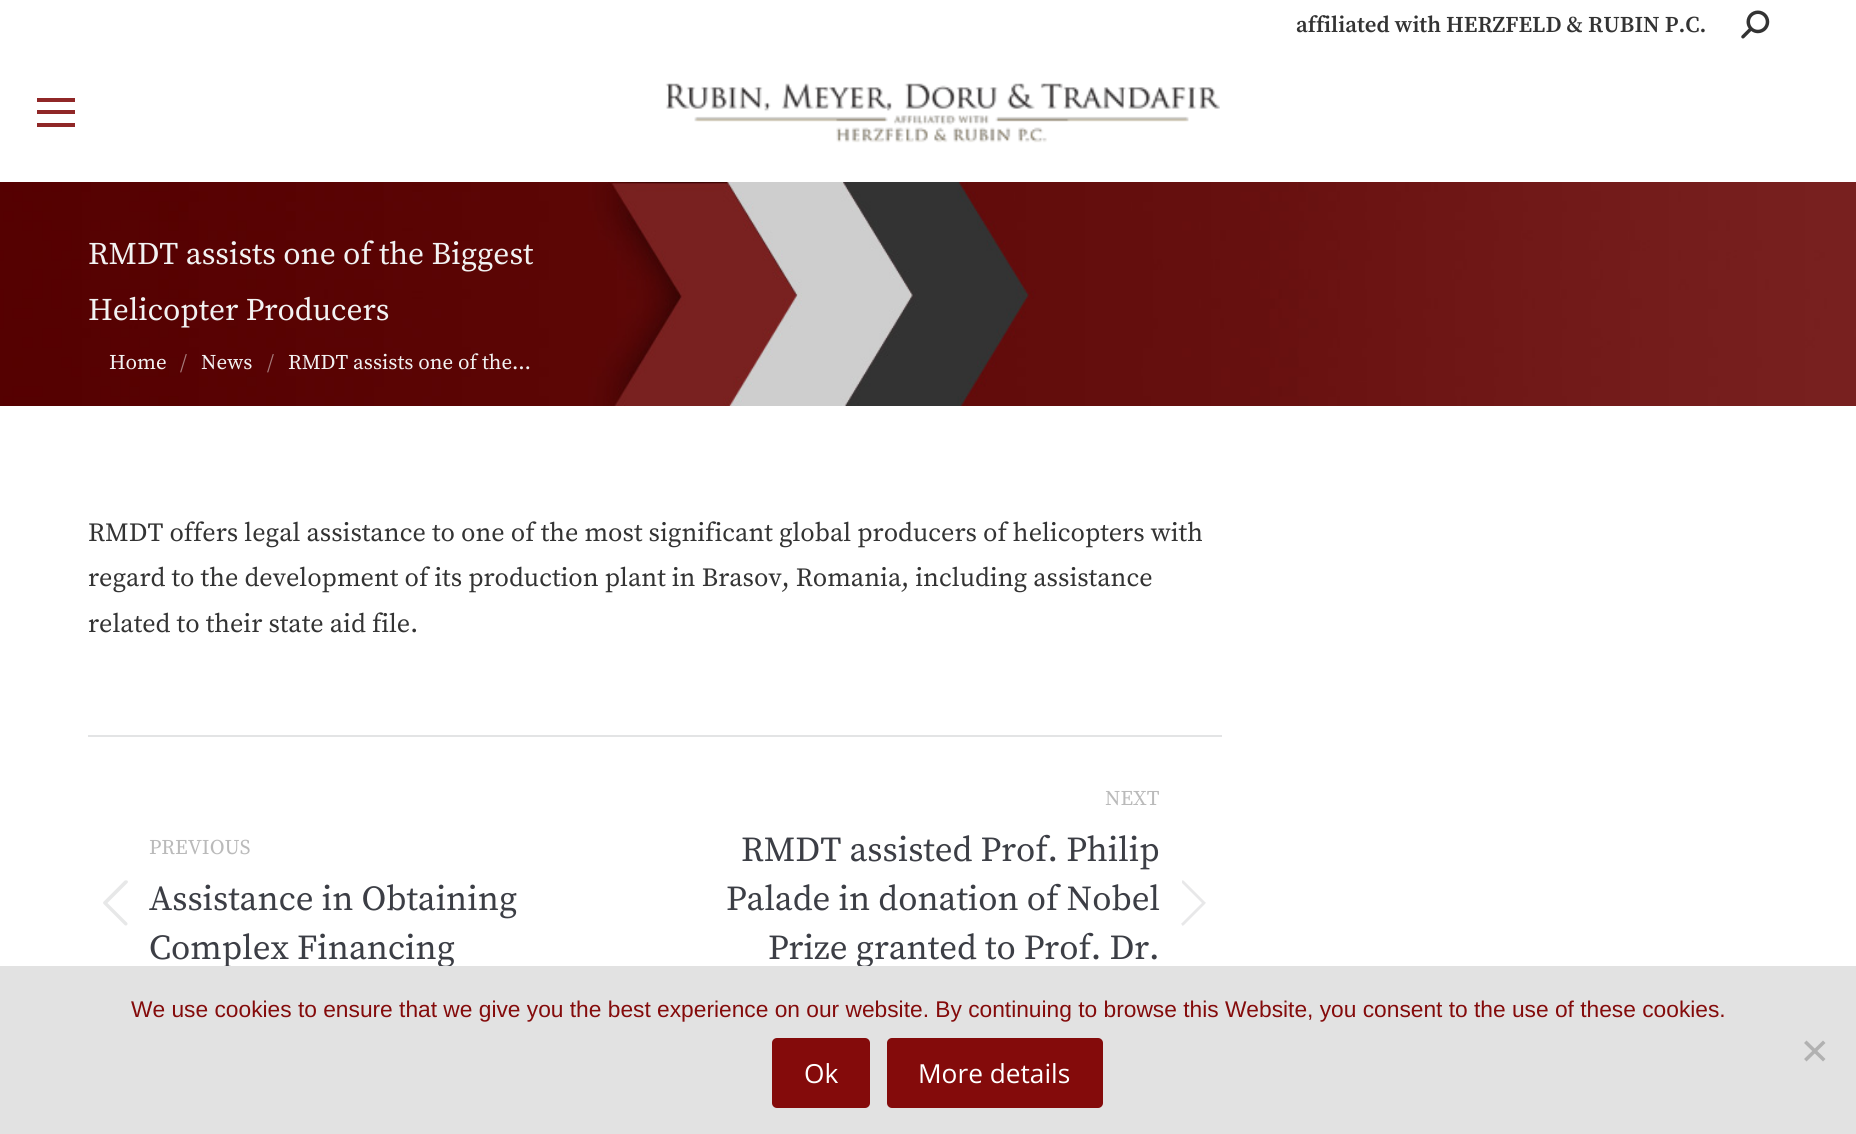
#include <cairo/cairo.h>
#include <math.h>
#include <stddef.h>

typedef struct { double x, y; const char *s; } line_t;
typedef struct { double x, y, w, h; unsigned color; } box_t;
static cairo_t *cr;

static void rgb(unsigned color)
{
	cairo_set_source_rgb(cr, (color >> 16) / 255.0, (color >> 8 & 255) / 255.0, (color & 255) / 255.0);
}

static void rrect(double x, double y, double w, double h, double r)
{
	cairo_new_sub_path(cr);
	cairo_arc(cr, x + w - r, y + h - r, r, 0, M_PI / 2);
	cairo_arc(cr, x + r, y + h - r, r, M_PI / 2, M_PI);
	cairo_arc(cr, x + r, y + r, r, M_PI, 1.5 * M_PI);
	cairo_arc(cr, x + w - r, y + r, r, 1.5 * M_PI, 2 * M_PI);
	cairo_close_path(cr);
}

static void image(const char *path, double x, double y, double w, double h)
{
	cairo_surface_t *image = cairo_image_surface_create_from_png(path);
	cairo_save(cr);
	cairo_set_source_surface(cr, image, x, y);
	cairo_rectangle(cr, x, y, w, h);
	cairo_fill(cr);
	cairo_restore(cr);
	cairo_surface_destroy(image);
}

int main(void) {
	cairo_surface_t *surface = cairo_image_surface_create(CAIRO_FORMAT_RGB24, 1856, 1134);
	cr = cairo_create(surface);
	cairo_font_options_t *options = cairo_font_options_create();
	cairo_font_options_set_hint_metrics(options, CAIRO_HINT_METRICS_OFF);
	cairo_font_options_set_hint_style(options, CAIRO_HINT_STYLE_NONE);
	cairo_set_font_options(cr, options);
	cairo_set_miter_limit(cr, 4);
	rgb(0xffffff);
	cairo_paint(cr);
	image("img/1.png", 1741, 10, 29, 29);
	{
		static const box_t items[] = {
			{37, 98, 38, 4, 0x902727},
			{37, 110, 38, 4, 0x902727},
			{37, 123, 38, 4, 0x902727},
		};
		for (size_t i = 0; i < sizeof items / sizeof *items; i++) {
			rgb(items[i].color);
			cairo_rectangle(cr, items[i].x, items[i].y, items[i].w, items[i].h);
			cairo_fill(cr);
		}
	}
	image("img/2.png", 665, 83, 555, 60);
	image("img/3.png", 0, 182, 1856, 224);
	rgb(0xe3e4e5);
	cairo_rectangle(cr, 88, 735, 1134, 2);
	cairo_fill(cr);
	image("img/4.png", 103, 880, 25, 46);
	rgb(0xe8e8e9);
	cairo_new_path(cr);
	cairo_move_to(cr, 1182, 881);
	cairo_curve_to(cr, 1182, 880, 1183, 880, 1184, 881);
	cairo_line_to(cr, 1205, 902);
	cairo_curve_to(cr, 1206, 902, 1206, 903, 1205, 904);
	cairo_line_to(cr, 1184, 925);
	cairo_curve_to(cr, 1183, 926, 1182, 926, 1182, 925);
	cairo_curve_to(cr, 1181, 924, 1181, 923, 1182, 923);
	cairo_line_to(cr, 1202, 903);
	cairo_line_to(cr, 1182, 883);
	cairo_close_path(cr);
	cairo_fill(cr);
	cairo_select_font_face(cr, "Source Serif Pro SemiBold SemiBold", CAIRO_FONT_SLANT_NORMAL, CAIRO_FONT_WEIGHT_NORMAL);
	cairo_set_font_size(cr, 22.75);
	rgb(0x333333);
	cairo_move_to(cr, 1296, 32);
	cairo_show_text(cr, "affiliated with HERZFELD & RUBIN P.C.");
	cairo_select_font_face(cr, "Source Serif Pro", CAIRO_FONT_SLANT_NORMAL, CAIRO_FONT_WEIGHT_NORMAL);
	cairo_set_font_size(cr, 31.5);
	rgb(0xf2f2f2);
	cairo_move_to(cr, 88, 264);
	cairo_show_text(cr, "RMDT assists one of the Biggest");
	cairo_move_to(cr, 88, 320);
	cairo_show_text(cr, "Helicopter Producers");
	cairo_set_font_size(cr, 21);
	cairo_move_to(cr, 109, 369);
	cairo_show_text(cr, "Home");
	rgb(0xa57a7a);
	cairo_move_to(cr, 180, 369);
	cairo_show_text(cr, "/");
	rgb(0xf2f2f2);
	cairo_move_to(cr, 201, 369);
	cairo_show_text(cr, "News");
	rgb(0xa57a7a);
	cairo_move_to(cr, 267, 369);
	cairo_show_text(cr, "/");
	rgb(0xf2f2f2);
	cairo_move_to(cr, 288, 369);
	cairo_show_text(cr, "RMDT assists one of the…");
	cairo_set_font_size(cr, 26.25);
	rgb(0x333333);
	{
		static const line_t items[] = {
			{88, 541, "RMDT offers legal assistance to one of the most significant global producers of helicopters with"},
			{88, 586, "regard to the development of its production plant in Brasov, Romania, including assistance"},
			{88, 632, "related to their state aid file."},
		};
		for (size_t i = 0; i < sizeof items / sizeof *items; i++) {
			cairo_move_to(cr, items[i].x, items[i].y);
			cairo_show_text(cr, items[i].s);
		}
	}
	cairo_set_font_size(cr, 21);
	rgb(0xbababa);
	cairo_move_to(cr, 149, 854);
	cairo_show_text(cr, "PREVIOUS");
	cairo_set_font_size(cr, 35);
	rgb(0x3c3e45);
	cairo_move_to(cr, 149, 910);
	cairo_show_text(cr, "Assistance in Obtaining");
	cairo_move_to(cr, 149, 959);
	cairo_show_text(cr, "Complex Financing");
	cairo_set_font_size(cr, 21);
	rgb(0xbababa);
	cairo_move_to(cr, 1105, 805);
	cairo_show_text(cr, "NEXT");
	cairo_set_font_size(cr, 35);
	rgb(0x3c3e45);
	{
		static const line_t items[] = {
			{741, 861, "RMDT assisted Prof. Philip"},
			{726, 910, "Palade in donation of Nobel"},
			{768, 959, "Prize granted to Prof. Dr."},
		};
		for (size_t i = 0; i < sizeof items / sizeof *items; i++) {
			cairo_move_to(cr, items[i].x, items[i].y);
			cairo_show_text(cr, items[i].s);
		}
	}
	rgb(0xe2e2e2);
	cairo_rectangle(cr, 0, 966, 1856, 168);
	cairo_fill(cr);
	cairo_select_font_face(cr, "Liberation Sans", CAIRO_FONT_SLANT_NORMAL, CAIRO_FONT_WEIGHT_NORMAL);
	cairo_set_font_size(cr, 22.75);
	rgb(0x840b0b);
	cairo_move_to(cr, 131, 1017);
	cairo_show_text(cr, "We use cookies to ensure that we give you the best experience on our website. By continuing to browse this Website, you consent to the use of these cookies.");
	rgb(0xb1b1b1);
	cairo_new_path(cr);
	cairo_move_to(cr, 1823, 1040.5);
	cairo_line_to(cr, 1825.5, 1043);
	cairo_line_to(cr, 1806.5, 1061.5);
	cairo_line_to(cr, 1804, 1059);
	cairo_close_path(cr);
	cairo_fill(cr);
	cairo_new_path(cr);
	cairo_move_to(cr, 1804, 1043);
	cairo_line_to(cr, 1806.5, 1040.5);
	cairo_line_to(cr, 1825.5, 1059);
	cairo_line_to(cr, 1823, 1061.5);
	cairo_close_path(cr);
	cairo_fill(cr);
	rgb(0x840b0b);
	rrect(772, 1038, 98, 70, 5);
	cairo_fill(cr);
	cairo_select_font_face(cr, "Open Sans", CAIRO_FONT_SLANT_NORMAL, CAIRO_FONT_WEIGHT_NORMAL);
	cairo_set_font_size(cr, 26.25);
	rgb(0xffffff);
	cairo_move_to(cr, 804, 1083);
	cairo_show_text(cr, "Ok");
	rgb(0x840b0b);
	rrect(887, 1038, 216, 70, 5);
	cairo_fill(cr);
	rgb(0xffffff);
	cairo_move_to(cr, 918, 1083);
	cairo_show_text(cr, "More details");
	cairo_surface_write_to_png(surface, "page.png");
	cairo_font_options_destroy(options);
	cairo_destroy(cr);
	cairo_surface_destroy(surface);
	return 0;
}
